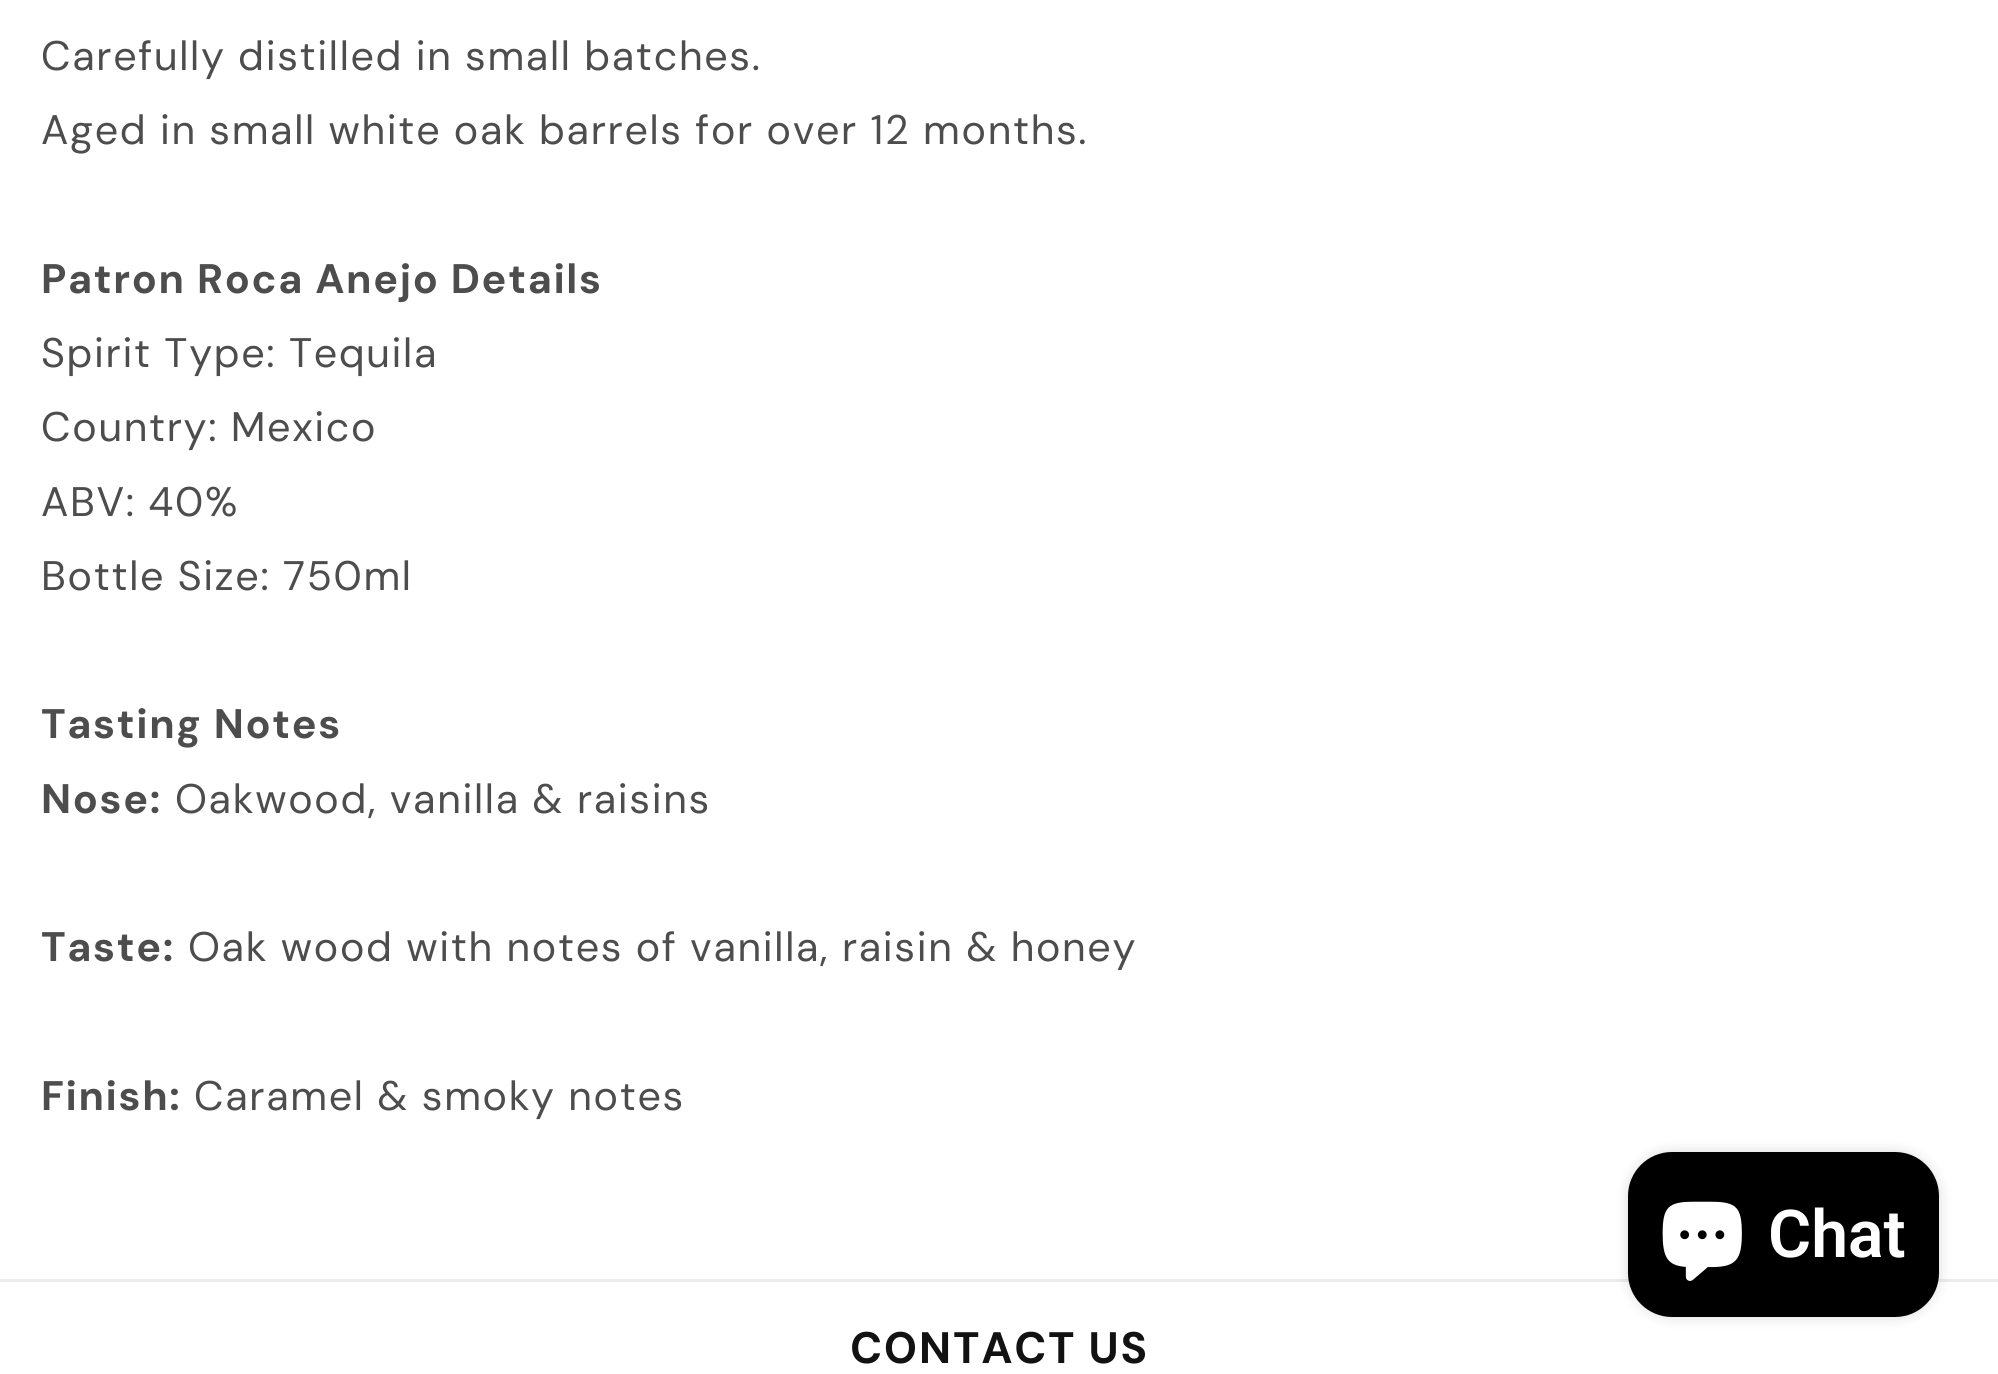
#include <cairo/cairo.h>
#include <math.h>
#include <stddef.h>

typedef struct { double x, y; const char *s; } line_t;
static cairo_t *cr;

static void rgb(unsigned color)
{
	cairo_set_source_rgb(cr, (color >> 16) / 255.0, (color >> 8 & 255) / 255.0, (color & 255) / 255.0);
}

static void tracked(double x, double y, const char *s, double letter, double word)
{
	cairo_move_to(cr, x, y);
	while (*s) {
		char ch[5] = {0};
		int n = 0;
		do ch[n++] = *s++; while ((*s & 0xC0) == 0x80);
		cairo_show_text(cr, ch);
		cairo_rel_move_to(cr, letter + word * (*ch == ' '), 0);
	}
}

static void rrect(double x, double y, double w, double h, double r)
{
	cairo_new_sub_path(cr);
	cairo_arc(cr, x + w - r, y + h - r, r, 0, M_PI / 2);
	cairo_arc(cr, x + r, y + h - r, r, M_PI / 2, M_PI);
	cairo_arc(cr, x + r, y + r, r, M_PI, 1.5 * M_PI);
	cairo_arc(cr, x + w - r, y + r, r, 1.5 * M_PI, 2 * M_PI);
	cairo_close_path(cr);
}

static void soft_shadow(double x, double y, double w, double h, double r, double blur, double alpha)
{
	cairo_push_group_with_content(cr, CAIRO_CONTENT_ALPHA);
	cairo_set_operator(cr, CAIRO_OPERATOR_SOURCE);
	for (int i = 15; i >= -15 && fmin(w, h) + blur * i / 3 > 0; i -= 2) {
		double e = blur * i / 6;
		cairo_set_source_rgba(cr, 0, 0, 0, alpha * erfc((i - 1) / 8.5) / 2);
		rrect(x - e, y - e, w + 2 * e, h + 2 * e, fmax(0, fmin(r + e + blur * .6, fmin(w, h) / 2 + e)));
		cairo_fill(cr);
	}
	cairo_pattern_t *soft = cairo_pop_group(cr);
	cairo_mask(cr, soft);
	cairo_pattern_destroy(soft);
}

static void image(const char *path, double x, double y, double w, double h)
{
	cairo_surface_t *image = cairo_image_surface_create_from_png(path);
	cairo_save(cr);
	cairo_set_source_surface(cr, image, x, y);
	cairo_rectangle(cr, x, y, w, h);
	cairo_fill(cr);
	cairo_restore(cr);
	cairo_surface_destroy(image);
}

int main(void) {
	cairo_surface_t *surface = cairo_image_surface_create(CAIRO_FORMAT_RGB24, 1998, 1374);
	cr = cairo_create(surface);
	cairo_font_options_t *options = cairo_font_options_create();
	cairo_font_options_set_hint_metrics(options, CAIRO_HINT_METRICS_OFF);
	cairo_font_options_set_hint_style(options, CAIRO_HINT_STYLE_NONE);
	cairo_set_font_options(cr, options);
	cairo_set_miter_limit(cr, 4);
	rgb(0xffffff);
	cairo_paint(cr);
	rgb(0xececec);
	cairo_rectangle(cr, 0, 1279, 1998, 3);
	cairo_fill(cr);
	rgb(0x000000);
	soft_shadow(1628, 1152, 311, 165, 44, 7, 0.15);
	rgb(0x000000);
	rrect(1628, 1152, 311, 165, 44);
	cairo_fill(cr);
	image("img/1.png", 1662, 1201, 80, 80);
	cairo_select_font_face(cr, "DM Sans", CAIRO_FONT_SLANT_NORMAL, CAIRO_FONT_WEIGHT_NORMAL);
	cairo_set_font_size(cr, 41.25);
	rgb(0x4d4d4d);
	tracked(41, 70, "Carefully distilled in small batches.", 1.65, 0);
	tracked(41, 144, "Aged in small white oak barrels for over 12 months.", 1.65, 0);
	cairo_select_font_face(cr, "DM Sans", CAIRO_FONT_SLANT_NORMAL, CAIRO_FONT_WEIGHT_BOLD);
	tracked(41, 293, "Patron Roca Anejo Details", 1.65, 0);
	cairo_select_font_face(cr, "DM Sans", CAIRO_FONT_SLANT_NORMAL, CAIRO_FONT_WEIGHT_NORMAL);
	{
		static const line_t items[] = {
			{41, 367, "Spirit Type: Tequila"},
			{41, 441, "Country: Mexico"},
			{41, 516, "ABV: 40%"},
			{41, 590, "Bottle Size: 750ml"},
		};
		for (size_t i = 0; i < sizeof items / sizeof *items; i++) {
			tracked(items[i].x, items[i].y, items[i].s, 1.65, 0);
		}
	}
	cairo_select_font_face(cr, "DM Sans", CAIRO_FONT_SLANT_NORMAL, CAIRO_FONT_WEIGHT_BOLD);
	tracked(41, 738, "Tasting Notes", 1.65, 0);
	tracked(41, 813, "Nose:", 1.65, 0);
	cairo_select_font_face(cr, "DM Sans", CAIRO_FONT_SLANT_NORMAL, CAIRO_FONT_WEIGHT_NORMAL);
	tracked(175, 813, "Oakwood, vanilla & raisins", 1.65, 0);
	cairo_select_font_face(cr, "DM Sans", CAIRO_FONT_SLANT_NORMAL, CAIRO_FONT_WEIGHT_BOLD);
	tracked(41, 961, "Taste:", 1.65, 0);
	cairo_select_font_face(cr, "DM Sans", CAIRO_FONT_SLANT_NORMAL, CAIRO_FONT_WEIGHT_NORMAL);
	tracked(188, 961, "Oak wood with notes of vanilla, raisin & honey", 1.65, 0);
	cairo_select_font_face(cr, "DM Sans", CAIRO_FONT_SLANT_NORMAL, CAIRO_FONT_WEIGHT_BOLD);
	tracked(41, 1110, "Finish:", 1.65, 0);
	cairo_select_font_face(cr, "DM Sans", CAIRO_FONT_SLANT_NORMAL, CAIRO_FONT_WEIGHT_NORMAL);
	tracked(194, 1110, "Caramel & smoky notes", 1.65, 0);
	cairo_select_font_face(cr, "Roboto SemiBold", CAIRO_FONT_SLANT_NORMAL, CAIRO_FONT_WEIGHT_NORMAL);
	cairo_set_font_size(cr, 66);
	rgb(0xffffff);
	cairo_move_to(cr, 1768, 1257);
	cairo_show_text(cr, "Chat");
	cairo_select_font_face(cr, "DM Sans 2", CAIRO_FONT_SLANT_NORMAL, CAIRO_FONT_WEIGHT_BOLD);
	cairo_set_font_size(cr, 44);
	rgb(0x121212);
	tracked(850, 1363, "CONTACT US", 1.65, 0);
	cairo_surface_write_to_png(surface, "page.png");
	cairo_font_options_destroy(options);
	cairo_destroy(cr);
	cairo_surface_destroy(surface);
	return 0;
}
